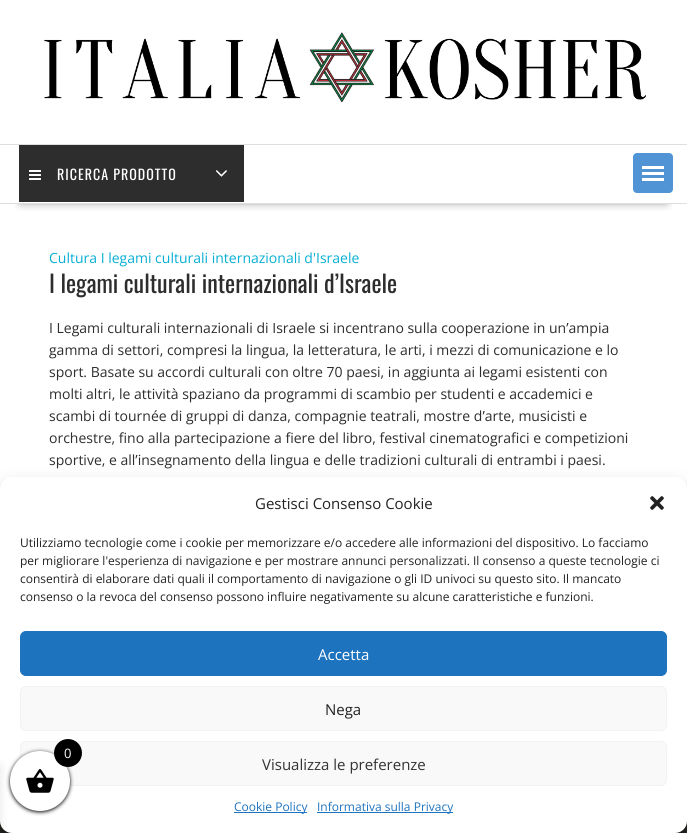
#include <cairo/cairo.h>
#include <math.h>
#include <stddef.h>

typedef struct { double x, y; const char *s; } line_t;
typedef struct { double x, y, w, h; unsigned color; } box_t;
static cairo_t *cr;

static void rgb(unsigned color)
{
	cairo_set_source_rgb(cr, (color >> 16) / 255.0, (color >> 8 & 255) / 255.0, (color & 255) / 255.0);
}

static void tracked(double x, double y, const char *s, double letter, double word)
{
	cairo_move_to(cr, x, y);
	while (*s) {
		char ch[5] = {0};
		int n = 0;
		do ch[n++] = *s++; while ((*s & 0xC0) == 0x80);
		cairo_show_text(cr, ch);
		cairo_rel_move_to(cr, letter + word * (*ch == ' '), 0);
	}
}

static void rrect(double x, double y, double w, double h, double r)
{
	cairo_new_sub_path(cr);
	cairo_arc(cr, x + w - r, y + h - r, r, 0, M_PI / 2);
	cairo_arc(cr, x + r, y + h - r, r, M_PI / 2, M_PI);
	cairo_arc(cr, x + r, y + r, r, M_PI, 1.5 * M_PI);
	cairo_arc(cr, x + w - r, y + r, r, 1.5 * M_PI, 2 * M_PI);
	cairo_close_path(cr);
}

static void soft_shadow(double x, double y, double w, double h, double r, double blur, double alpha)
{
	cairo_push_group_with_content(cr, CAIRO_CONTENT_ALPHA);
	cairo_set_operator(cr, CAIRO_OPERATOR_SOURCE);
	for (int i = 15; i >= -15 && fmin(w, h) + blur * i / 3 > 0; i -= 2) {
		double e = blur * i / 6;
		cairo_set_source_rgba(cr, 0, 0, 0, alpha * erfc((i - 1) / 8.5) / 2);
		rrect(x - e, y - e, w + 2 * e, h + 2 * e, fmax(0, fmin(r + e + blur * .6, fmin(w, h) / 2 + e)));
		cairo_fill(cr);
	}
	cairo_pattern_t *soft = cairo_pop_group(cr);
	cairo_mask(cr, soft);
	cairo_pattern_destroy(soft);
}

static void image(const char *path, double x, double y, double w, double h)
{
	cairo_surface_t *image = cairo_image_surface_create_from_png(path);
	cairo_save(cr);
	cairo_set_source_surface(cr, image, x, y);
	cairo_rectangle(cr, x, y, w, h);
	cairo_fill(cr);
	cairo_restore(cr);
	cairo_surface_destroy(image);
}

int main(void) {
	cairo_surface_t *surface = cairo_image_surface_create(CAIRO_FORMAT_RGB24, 687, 833);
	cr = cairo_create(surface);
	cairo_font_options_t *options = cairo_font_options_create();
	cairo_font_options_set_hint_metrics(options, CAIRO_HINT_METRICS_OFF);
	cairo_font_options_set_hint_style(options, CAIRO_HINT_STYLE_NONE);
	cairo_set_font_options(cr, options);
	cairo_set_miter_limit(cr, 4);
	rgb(0xffffff);
	cairo_paint(cr);
	image("img/1.png", 44, 32, 602, 71);
	cairo_save(cr);
	cairo_rectangle(cr, 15, 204, 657, 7);
	cairo_clip(cr);
	rgb(0x000000);
	soft_shadow(21, 182, 645, 18, 0, 5.5, 0.75);
	cairo_restore(cr);
	{
		static const box_t items[] = {
			{0, 144, 687, 1, 0xdedede},
			{0, 203, 687, 1, 0xdedede},
			{19, 145, 225, 57, 0x2d2d2d},
		};
		for (size_t i = 0; i < sizeof items / sizeof *items; i++) {
			rgb(items[i].color);
			cairo_rectangle(cr, items[i].x, items[i].y, items[i].w, items[i].h);
			cairo_fill(cr);
		}
	}
	image("img/2.png", 29, 170, 12, 10);
	image("img/3.png", 215, 170, 12, 7);
	rgb(0x5194d6);
	rrect(633.5, 153.5, 39, 39, 3.5);
	cairo_fill_preserve(cr);
	cairo_set_line_width(cr, 1);
	cairo_stroke(cr);
	{
		static const box_t items[] = {
			{642, 178, 22, 3, 0xffffff},
			{642, 172, 22, 3, 0xffffff},
			{642, 166, 22, 3, 0xffffff},
			{0, 821, 687, 12, 0x272823},
		};
		for (size_t i = 0; i < sizeof items / sizeof *items; i++) {
			rgb(items[i].color);
			cairo_rectangle(cr, items[i].x, items[i].y, items[i].w, items[i].h);
			cairo_fill(cr);
		}
	}
	rgb(0x000000);
	soft_shadow(0, 483, 687, 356, 12, 3, 0.23);
	soft_shadow(0, 487, 687, 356, 12, 10, 0.19);
	rgb(0xffffff);
	rrect(0, 477, 687, 356, 12);
	cairo_fill(cr);
	image("img/4.png", 650, 496, 14, 14);
	rgb(0x1e73be);
	rrect(20.5, 631.5, 646, 44, 5.5);
	cairo_fill_preserve(cr);
	cairo_stroke(cr);
	rgb(0xf9f9f9);
	rrect(20.5, 686.5, 646, 44, 5.5);
	cairo_fill_preserve(cr);
	rgb(0xf2f2f2);
	cairo_stroke(cr);
	rgb(0xf9f9f9);
	rrect(20.5, 741.5, 646, 44, 5.5);
	cairo_fill_preserve(cr);
	rgb(0xf2f2f2);
	cairo_stroke(cr);
	rgb(0x1e73be);
	cairo_rectangle(cr, 234, 812, 73, 1);
	cairo_fill(cr);
	cairo_rectangle(cr, 317, 812, 136, 1);
	cairo_fill(cr);
	rgb(0x000000);
	soft_shadow(-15, 766, 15, 66, 0, 5, 0.1);
	soft_shadow(10, 752, 60, 60, 30, 2, 1);
	rgb(0xffffff);
	cairo_arc(cr, 40, 781, 30, 0, 2 * M_PI);
	cairo_fill(cr);
	rgb(0x000000);
	cairo_arc(cr, 68, 753, 14, 0, 2 * M_PI);
	cairo_fill(cr);
	image("img/5.png", 26, 769, 28, 24);
	cairo_select_font_face(cr, "Oswald", CAIRO_FONT_SLANT_NORMAL, CAIRO_FONT_WEIGHT_NORMAL);
	cairo_set_font_size(cr, 14);
	rgb(0xffffff);
	tracked(57, 180, "RICERCA PRODOTTO", 1, 0);
	cairo_select_font_face(cr, "Open Sans", CAIRO_FONT_SLANT_NORMAL, CAIRO_FONT_WEIGHT_NORMAL);
	rgb(0x07afd4);
	cairo_move_to(cr, 49, 263);
	cairo_show_text(cr, "Cultura I legami culturali internazionali d'Israele");
	cairo_select_font_face(cr, "Oswald", CAIRO_FONT_SLANT_NORMAL, CAIRO_FONT_WEIGHT_NORMAL);
	cairo_set_font_size(cr, 24);
	rgb(0x2d2d2d);
	cairo_move_to(cr, 49, 293);
	cairo_show_text(cr, "I legami culturali internazionali d’Israele");
	cairo_select_font_face(cr, "Open Sans", CAIRO_FONT_SLANT_NORMAL, CAIRO_FONT_WEIGHT_NORMAL);
	cairo_set_font_size(cr, 14);
	{
		static const line_t items[] = {
			{49, 333, "I Legami culturali internazionali di Israele si incentrano sulla cooperazione in un’ampia"},
			{49, 355, "gamma di settori, compresi la lingua, la letteratura, le arti, i mezzi di comunicazione e lo"},
			{49, 377, "sport. Basate su accordi culturali con oltre 70 paesi, in aggiunta ai legami esistenti con"},
			{49, 399, "molti altri, le attività spaziano da programmi di scambio per studenti e accademici e"},
			{49, 421, "scambi di tournée di gruppi di danza, compagnie teatrali, mostre d’arte, musicisti e"},
			{49, 443, "orchestre, fino alla partecipazione a fiere del libro, festival cinematografici e competizioni"},
			{49, 465, "sportive, e all’insegnamento della lingua e delle tradizioni culturali di entrambi i paesi."},
		};
		for (size_t i = 0; i < sizeof items / sizeof *items; i++) {
			cairo_move_to(cr, items[i].x, items[i].y);
			cairo_show_text(cr, items[i].s);
		}
	}
	cairo_set_font_size(cr, 15);
	rgb(0x222222);
	cairo_move_to(cr, 255, 509);
	cairo_show_text(cr, "Gestisci Consenso Cookie");
	cairo_set_font_size(cr, 12);
	{
		static const line_t items[] = {
			{20, 547, "Utilizziamo tecnologie come i cookie per memorizzare e/o accedere alle informazioni del dispositivo. Lo facciamo"},
			{20, 565, "per migliorare l'esperienza di navigazione e per mostrare annunci personalizzati. Il consenso a queste tecnologie ci"},
			{20, 583, "consentirà di elaborare dati quali il comportamento di navigazione o gli ID univoci su questo sito. Il mancato"},
			{20, 601, "consenso o la revoca del consenso possono influire negativamente su alcune caratteristiche e funzioni."},
		};
		for (size_t i = 0; i < sizeof items / sizeof *items; i++) {
			cairo_move_to(cr, items[i].x, items[i].y);
			cairo_show_text(cr, items[i].s);
		}
	}
	cairo_set_font_size(cr, 15);
	rgb(0xffffff);
	cairo_move_to(cr, 318, 660);
	cairo_show_text(cr, "Accetta");
	rgb(0x222222);
	cairo_move_to(cr, 325, 715);
	cairo_show_text(cr, "Nega");
	rgb(0x333333);
	cairo_move_to(cr, 262, 770);
	cairo_show_text(cr, "Visualizza le preferenze");
	cairo_set_font_size(cr, 12);
	rgb(0x1e73be);
	cairo_move_to(cr, 234, 811);
	cairo_show_text(cr, "Cookie Policy");
	cairo_move_to(cr, 317, 811);
	cairo_show_text(cr, "Informativa sulla Privacy");
	cairo_set_font_size(cr, 13);
	rgb(0xffffff);
	cairo_move_to(cr, 64, 758);
	cairo_show_text(cr, "0");
	cairo_surface_write_to_png(surface, "page.png");
	cairo_font_options_destroy(options);
	cairo_destroy(cr);
	cairo_surface_destroy(surface);
	return 0;
}
